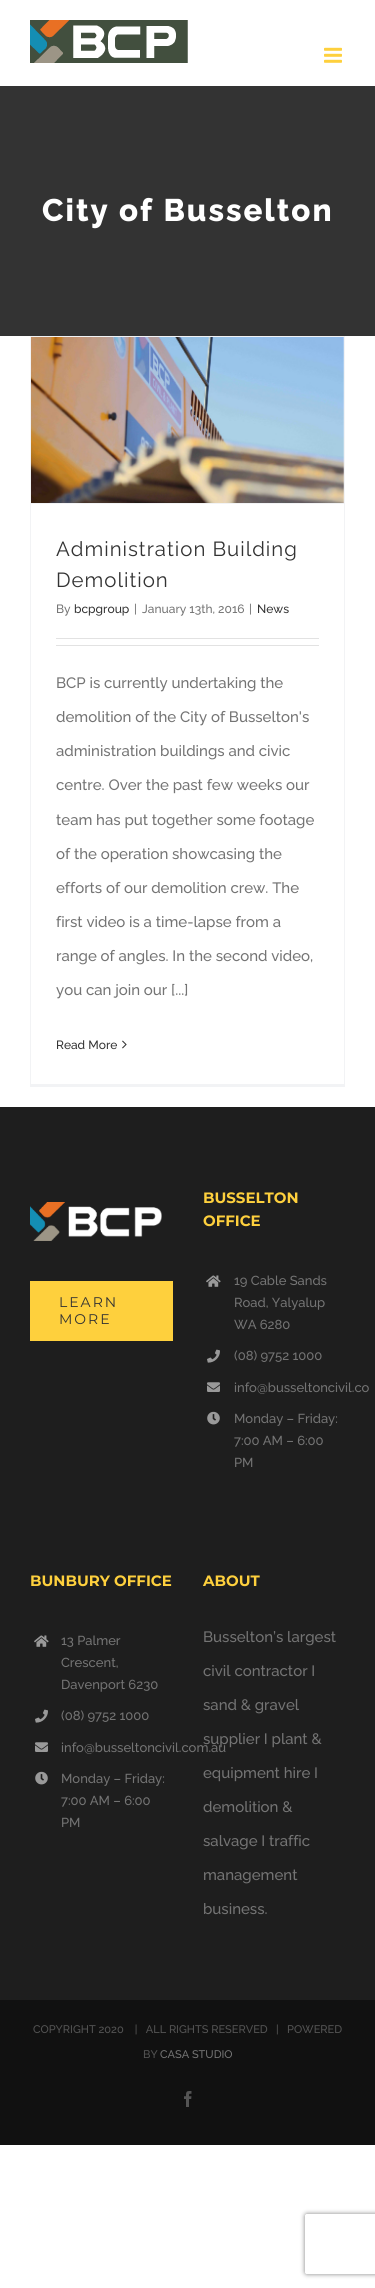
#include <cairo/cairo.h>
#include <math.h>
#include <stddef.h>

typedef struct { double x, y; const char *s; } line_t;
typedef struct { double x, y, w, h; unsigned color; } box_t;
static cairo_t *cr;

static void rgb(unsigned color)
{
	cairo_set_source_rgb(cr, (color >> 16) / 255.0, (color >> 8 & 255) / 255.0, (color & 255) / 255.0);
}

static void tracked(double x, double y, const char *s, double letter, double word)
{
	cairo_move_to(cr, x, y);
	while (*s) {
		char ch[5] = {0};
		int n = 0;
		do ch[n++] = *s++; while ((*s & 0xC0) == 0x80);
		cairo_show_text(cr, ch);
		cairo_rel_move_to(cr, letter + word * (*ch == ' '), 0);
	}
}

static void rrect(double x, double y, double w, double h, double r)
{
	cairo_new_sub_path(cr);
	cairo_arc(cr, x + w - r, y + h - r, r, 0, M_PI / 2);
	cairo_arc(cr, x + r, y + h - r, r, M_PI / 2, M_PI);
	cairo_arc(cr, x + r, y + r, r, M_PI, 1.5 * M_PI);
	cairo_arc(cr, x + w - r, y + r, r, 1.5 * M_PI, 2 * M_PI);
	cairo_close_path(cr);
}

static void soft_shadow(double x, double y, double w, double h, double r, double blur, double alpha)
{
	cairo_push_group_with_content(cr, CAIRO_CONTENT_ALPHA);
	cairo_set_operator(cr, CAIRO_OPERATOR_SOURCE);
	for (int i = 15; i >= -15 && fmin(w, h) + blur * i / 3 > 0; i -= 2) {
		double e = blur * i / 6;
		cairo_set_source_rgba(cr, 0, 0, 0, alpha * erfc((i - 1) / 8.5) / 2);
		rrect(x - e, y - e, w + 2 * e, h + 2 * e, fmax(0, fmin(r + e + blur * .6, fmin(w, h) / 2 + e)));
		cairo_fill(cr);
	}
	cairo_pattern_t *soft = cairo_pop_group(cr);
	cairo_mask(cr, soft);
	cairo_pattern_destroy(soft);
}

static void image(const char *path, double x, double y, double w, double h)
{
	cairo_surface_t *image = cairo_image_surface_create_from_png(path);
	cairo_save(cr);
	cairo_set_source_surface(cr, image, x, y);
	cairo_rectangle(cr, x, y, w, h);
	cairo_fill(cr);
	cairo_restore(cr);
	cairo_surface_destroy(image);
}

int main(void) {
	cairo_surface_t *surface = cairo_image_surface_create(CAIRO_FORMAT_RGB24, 375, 2288);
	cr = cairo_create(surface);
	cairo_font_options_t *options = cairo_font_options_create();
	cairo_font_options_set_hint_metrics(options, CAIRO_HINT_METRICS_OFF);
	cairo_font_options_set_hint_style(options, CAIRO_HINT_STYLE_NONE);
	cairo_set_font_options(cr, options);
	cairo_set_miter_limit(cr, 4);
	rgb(0xffffff);
	cairo_paint(cr);
	image("img/1.png", 30, 20, 158, 43);
	image("img/2.png", 324, 47, 18, 16);
	{
		static const box_t items[] = {
			{0, 86, 375, 250, 0x333333},
			{30, 336, 315, 1, 0xf2f3f5},
			{344, 336, 1, 751, 0xf2f3f5},
			{30, 1084, 315, 3, 0xf2f3f5},
			{30, 336, 1, 751, 0xf2f3f5},
			{31, 503, 313, 1, 0xf2f3f5},
		};
		for (size_t i = 0; i < sizeof items / sizeof *items; i++) {
			rgb(items[i].color);
			cairo_rectangle(cr, items[i].x, items[i].y, items[i].w, items[i].h);
			cairo_fill(cr);
		}
	}
	image("img/3.png", 31, 337, 313, 166);
	rgb(0xe2e2e2);
	cairo_rectangle(cr, 56, 638, 263, 1);
	cairo_fill(cr);
	cairo_rectangle(cr, 56, 645, 263, 1);
	cairo_fill(cr);
	image("img/4.png", 122, 1040, 5, 9);
	rgb(0x1e1e1e);
	cairo_rectangle(cr, 0, 1107, 375, 893);
	cairo_fill(cr);
	image("img/5.png", 30, 1202, 132, 39);
	rgb(0xfed03d);
	cairo_rectangle(cr, 30, 1281, 143, 60);
	cairo_fill(cr);
	image("img/6.png", 206, 1275, 15, 12);
	image("img/7.png", 207, 1349, 13, 14);
	image("img/8.png", 207, 1382, 13, 10);
	image("img/9.png", 207, 1411, 13, 14);
	image("img/6.png", 34, 1635, 15, 12);
	image("img/7.png", 35, 1709, 13, 14);
	image("img/8.png", 35, 1742, 13, 10);
	image("img/9.png", 35, 1771, 13, 14);
	rgb(0x111111);
	cairo_rectangle(cr, 0, 2000, 375, 145);
	cairo_fill(cr);
	image("img/10.png", 184, 2091, 8, 16);
	cairo_save(cr);
	cairo_set_fill_rule(cr, CAIRO_FILL_RULE_EVEN_ODD);
	cairo_new_path(cr);
	cairo_move_to(cr, 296, 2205);
	cairo_line_to(cr, 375, 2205);
	cairo_line_to(cr, 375, 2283);
	cairo_line_to(cr, 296, 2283);
	cairo_close_path(cr);
	cairo_move_to(cr, 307, 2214);
	cairo_line_to(cr, 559, 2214);
	cairo_curve_to(cr, 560, 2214, 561, 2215, 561, 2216);
	cairo_line_to(cr, 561, 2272);
	cairo_curve_to(cr, 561, 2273, 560, 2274, 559, 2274);
	cairo_line_to(cr, 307, 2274);
	cairo_curve_to(cr, 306, 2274, 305, 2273, 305, 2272);
	cairo_line_to(cr, 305, 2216);
	cairo_curve_to(cr, 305, 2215, 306, 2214, 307, 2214);
	cairo_close_path(cr);
	cairo_clip(cr);
	rgb(0x808080);
	soft_shadow(305, 2214, 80, 60, 2, 2.5, 1);
	cairo_restore(cr);
	cairo_select_font_face(cr, "Raleway ExtraBold", CAIRO_FONT_SLANT_NORMAL, CAIRO_FONT_WEIGHT_NORMAL);
	cairo_set_font_size(cr, 31.25);
	rgb(0xffffff);
	tracked(42, 221, "City of Busselton", 2, 0);
	cairo_select_font_face(cr, "Raleway", CAIRO_FONT_SLANT_NORMAL, CAIRO_FONT_WEIGHT_NORMAL);
	cairo_set_font_size(cr, 20.4);
	rgb(0x333333);
	tracked(56, 556, "Administration Building", 1, 0);
	tracked(56, 587, "Demolition", 1, 0);
	cairo_select_font_face(cr, "Raleway Medium", CAIRO_FONT_SLANT_NORMAL, CAIRO_FONT_WEIGHT_NORMAL);
	cairo_set_font_size(cr, 12);
	rgb(0x747474);
	cairo_move_to(cr, 56, 613);
	cairo_show_text(cr, "By");
	rgb(0x333333);
	cairo_move_to(cr, 74, 613);
	cairo_show_text(cr, "bcpgroup");
	rgb(0x747474);
	{
		static const line_t items[] = {
			{134, 613, "|"},
			{142, 613, "January 13th, 2016"},
			{249, 613, "|"},
		};
		for (size_t i = 0; i < sizeof items / sizeof *items; i++) {
			cairo_move_to(cr, items[i].x, items[i].y);
			cairo_show_text(cr, items[i].s);
		}
	}
	rgb(0x333333);
	cairo_move_to(cr, 257, 613);
	cairo_show_text(cr, "News");
	cairo_set_font_size(cr, 15);
	rgb(0x747474);
	{
		static const line_t items[] = {
			{56, 688, "BCP is currently undertaking the"},
			{56, 722, "demolition of the City of Busselton's"},
			{56, 756, "administration buildings and civic"},
			{56, 790, "centre. Over the past few weeks our"},
			{56, 825, "team has put together some footage"},
			{56, 859, "of the operation showcasing the"},
			{56, 893, "efforts of our demolition crew. The"},
			{56, 927, "first video is a time-lapse from a"},
			{56, 961, "range of angles. In the second video,"},
			{56, 995, "you can join our [...]"},
		};
		for (size_t i = 0; i < sizeof items / sizeof *items; i++) {
			cairo_move_to(cr, items[i].x, items[i].y);
			cairo_show_text(cr, items[i].s);
		}
	}
	cairo_set_font_size(cr, 12);
	rgb(0x333333);
	cairo_move_to(cr, 56, 1049);
	cairo_show_text(cr, "Read More");
	cairo_select_font_face(cr, "Montserrat", CAIRO_FONT_SLANT_NORMAL, CAIRO_FONT_WEIGHT_NORMAL);
	cairo_set_font_size(cr, 14);
	tracked(59, 1307, "LEARN", 2, 0);
	tracked(59, 1324, "MORE", 2, 0);
	cairo_select_font_face(cr, "Montserrat", CAIRO_FONT_SLANT_NORMAL, CAIRO_FONT_WEIGHT_BOLD);
	cairo_set_font_size(cr, 15);
	rgb(0xfed03d);
	cairo_move_to(cr, 203, 1203);
	cairo_show_text(cr, "BUSSELTON");
	cairo_move_to(cr, 203, 1226);
	cairo_show_text(cr, "OFFICE");
	cairo_select_font_face(cr, "Raleway Medium", CAIRO_FONT_SLANT_NORMAL, CAIRO_FONT_WEIGHT_NORMAL);
	cairo_set_font_size(cr, 13);
	rgb(0x747474);
	{
		static const line_t items[] = {
			{234, 1285, "19 Cable Sands"},
			{234, 1307, "Road, Yalyalup"},
			{234, 1329, "WA 6280"},
			{234, 1360, "(08) 9752 1000"},
			{234, 1392, "info@busseltoncivil.co"},
			{234, 1423, "Monday – Friday:"},
			{234, 1445, "7:00 AM – 6:00"},
			{234, 1467, "PM"},
		};
		for (size_t i = 0; i < sizeof items / sizeof *items; i++) {
			cairo_move_to(cr, items[i].x, items[i].y);
			cairo_show_text(cr, items[i].s);
		}
	}
	cairo_select_font_face(cr, "Montserrat", CAIRO_FONT_SLANT_NORMAL, CAIRO_FONT_WEIGHT_BOLD);
	cairo_set_font_size(cr, 15);
	rgb(0xfed03d);
	cairo_move_to(cr, 30, 1586);
	cairo_show_text(cr, "BUNBURY OFFICE");
	cairo_select_font_face(cr, "Raleway Medium", CAIRO_FONT_SLANT_NORMAL, CAIRO_FONT_WEIGHT_NORMAL);
	cairo_set_font_size(cr, 13);
	rgb(0x747474);
	{
		static const line_t items[] = {
			{61, 1645, "13 Palmer"},
			{61, 1667, "Crescent,"},
			{61, 1689, "Davenport 6230"},
			{61, 1720, "(08) 9752 1000"},
			{61, 1752, "info@busseltoncivil.com.au"},
			{61, 1783, "Monday – Friday:"},
			{61, 1805, "7:00 AM – 6:00"},
			{61, 1827, "PM"},
		};
		for (size_t i = 0; i < sizeof items / sizeof *items; i++) {
			cairo_move_to(cr, items[i].x, items[i].y);
			cairo_show_text(cr, items[i].s);
		}
	}
	cairo_select_font_face(cr, "Montserrat", CAIRO_FONT_SLANT_NORMAL, CAIRO_FONT_WEIGHT_BOLD);
	cairo_set_font_size(cr, 15);
	rgb(0xfed03d);
	cairo_move_to(cr, 203, 1586);
	cairo_show_text(cr, "ABOUT");
	cairo_select_font_face(cr, "Raleway Medium", CAIRO_FONT_SLANT_NORMAL, CAIRO_FONT_WEIGHT_NORMAL);
	rgb(0x747474);
	{
		static const line_t items[] = {
			{203, 1642, "Busselton’s largest"},
			{203, 1676, "civil contractor I"},
			{203, 1710, "sand & gravel"},
			{203, 1744, "supplier I plant &"},
			{203, 1778, "equipment hire I"},
			{203, 1812, "demolition &"},
			{203, 1846, "salvage I traffic"},
			{203, 1880, "management"},
			{203, 1914, "business."},
		};
		for (size_t i = 0; i < sizeof items / sizeof *items; i++) {
			cairo_move_to(cr, items[i].x, items[i].y);
			cairo_show_text(cr, items[i].s);
		}
	}
	cairo_set_font_size(cr, 11);
	rgb(0x545454);
	cairo_move_to(cr, 33, 2033);
	cairo_show_text(cr, "COPYRIGHT 2020    |   ALL RIGHTS RESERVED   |   POWERED");
	cairo_move_to(cr, 143, 2058);
	cairo_show_text(cr, "BY");
	rgb(0x747474);
	cairo_move_to(cr, 160, 2058);
	cairo_show_text(cr, "CASA STUDIO");
	cairo_surface_write_to_png(surface, "page.png");
	cairo_font_options_destroy(options);
	cairo_destroy(cr);
	cairo_surface_destroy(surface);
	return 0;
}
